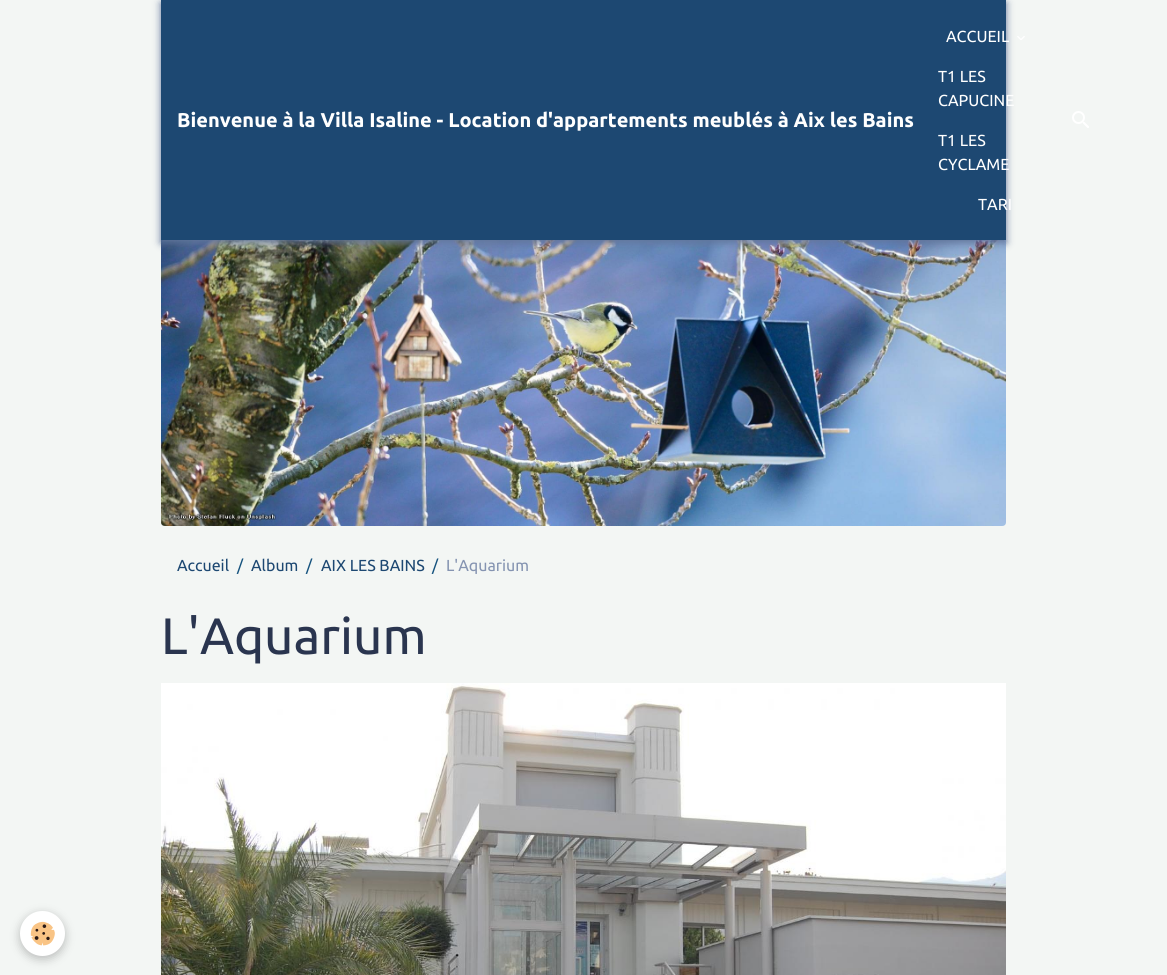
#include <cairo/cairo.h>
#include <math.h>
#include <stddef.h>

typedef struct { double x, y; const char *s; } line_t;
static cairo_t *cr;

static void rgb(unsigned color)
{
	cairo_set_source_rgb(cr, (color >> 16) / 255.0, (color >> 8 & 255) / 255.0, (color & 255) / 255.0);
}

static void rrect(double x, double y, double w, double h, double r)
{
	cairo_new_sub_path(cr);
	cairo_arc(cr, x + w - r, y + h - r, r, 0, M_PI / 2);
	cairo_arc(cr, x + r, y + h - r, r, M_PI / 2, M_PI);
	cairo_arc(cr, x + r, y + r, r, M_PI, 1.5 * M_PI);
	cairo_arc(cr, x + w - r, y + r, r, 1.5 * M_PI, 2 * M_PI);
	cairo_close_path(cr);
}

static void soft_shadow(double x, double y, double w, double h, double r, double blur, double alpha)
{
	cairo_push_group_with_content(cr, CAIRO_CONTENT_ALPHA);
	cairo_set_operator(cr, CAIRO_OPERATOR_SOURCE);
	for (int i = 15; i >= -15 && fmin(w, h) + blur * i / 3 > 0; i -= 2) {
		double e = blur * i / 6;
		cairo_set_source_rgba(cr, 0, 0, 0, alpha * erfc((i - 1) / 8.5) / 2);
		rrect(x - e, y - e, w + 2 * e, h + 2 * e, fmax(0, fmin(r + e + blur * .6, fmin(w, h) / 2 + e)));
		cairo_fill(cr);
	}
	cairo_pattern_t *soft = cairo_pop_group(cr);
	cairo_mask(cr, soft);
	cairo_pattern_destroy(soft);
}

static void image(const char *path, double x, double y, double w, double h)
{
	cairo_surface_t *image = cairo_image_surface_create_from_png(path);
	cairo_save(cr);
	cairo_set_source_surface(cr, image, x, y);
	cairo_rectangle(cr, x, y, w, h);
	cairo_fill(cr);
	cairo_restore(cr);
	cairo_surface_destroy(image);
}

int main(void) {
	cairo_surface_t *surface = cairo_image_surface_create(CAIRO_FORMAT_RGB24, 1167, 975);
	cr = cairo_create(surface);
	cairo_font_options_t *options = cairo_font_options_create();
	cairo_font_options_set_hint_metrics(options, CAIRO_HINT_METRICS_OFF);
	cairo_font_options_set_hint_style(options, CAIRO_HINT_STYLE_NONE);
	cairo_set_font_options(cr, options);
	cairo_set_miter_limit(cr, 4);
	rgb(0xf3f6f4);
	cairo_paint(cr);
	image("img/3.png", 161, 240, 845, 286);
	rgb(0x62759b);
	soft_shadow(161, 3, 845, 240, 0, 4, 1);
	rgb(0x1d4872);
	cairo_rectangle(cr, 161, 0, 845, 240);
	cairo_fill(cr);
	image("img/1.png", 1017, 36, 8, 4);
	image("img/2.png", 1072, 111, 17, 17);
	image("img/4.png", 161, 683, 845, 292);
	rgb(0x000000);
	soft_shadow(20, 914, 45, 45, 22.5, 5, 0.24);
	rgb(0xffffff);
	cairo_arc(cr, 42.5, 933.5, 22.5, 0, 2 * M_PI);
	cairo_fill(cr);
	image("img/5.png", 30, 921, 25, 25);
	cairo_select_font_face(cr, "Ubuntu", CAIRO_FONT_SLANT_NORMAL, CAIRO_FONT_WEIGHT_BOLD);
	cairo_set_font_size(cr, 20);
	cairo_move_to(cr, 177, 127);
	cairo_show_text(cr, "Bienvenue à la Villa Isaline - Location d'appartements meublés à Aix les Bains");
	cairo_select_font_face(cr, "Ubuntu", CAIRO_FONT_SLANT_NORMAL, CAIRO_FONT_WEIGHT_NORMAL);
	cairo_set_font_size(cr, 16);
	{
		static const line_t items[] = {
			{946, 42, "ACCUEIL"},
			{938, 82, "T1 LES"},
			{938, 106, "CAPUCINE"},
			{938, 146, "T1 LES"},
			{938, 170, "CYCLAME"},
			{978, 210, "TARI"},
		};
		for (size_t i = 0; i < sizeof items / sizeof *items; i++) {
			cairo_move_to(cr, items[i].x, items[i].y);
			cairo_show_text(cr, items[i].s);
		}
	}
	rgb(0x1d4872);
	cairo_move_to(cr, 177, 571);
	cairo_show_text(cr, "Accueil");
	rgb(0x16537e);
	cairo_move_to(cr, 237, 571);
	cairo_show_text(cr, "/");
	rgb(0x1d4872);
	cairo_move_to(cr, 251, 571);
	cairo_show_text(cr, "Album");
	rgb(0x16537e);
	cairo_move_to(cr, 306, 571);
	cairo_show_text(cr, "/");
	rgb(0x1d4872);
	cairo_move_to(cr, 321, 571);
	cairo_show_text(cr, "AIX LES BAINS");
	rgb(0x16537e);
	cairo_move_to(cr, 432, 571);
	cairo_show_text(cr, "/");
	rgb(0x8594b1);
	cairo_move_to(cr, 446, 571);
	cairo_show_text(cr, "L'Aquarium");
	cairo_set_font_size(cr, 51.25);
	rgb(0x2a354f);
	cairo_move_to(cr, 161, 654);
	cairo_show_text(cr, "L'Aquarium");
	cairo_surface_write_to_png(surface, "page.png");
	cairo_font_options_destroy(options);
	cairo_destroy(cr);
	cairo_surface_destroy(surface);
	return 0;
}
